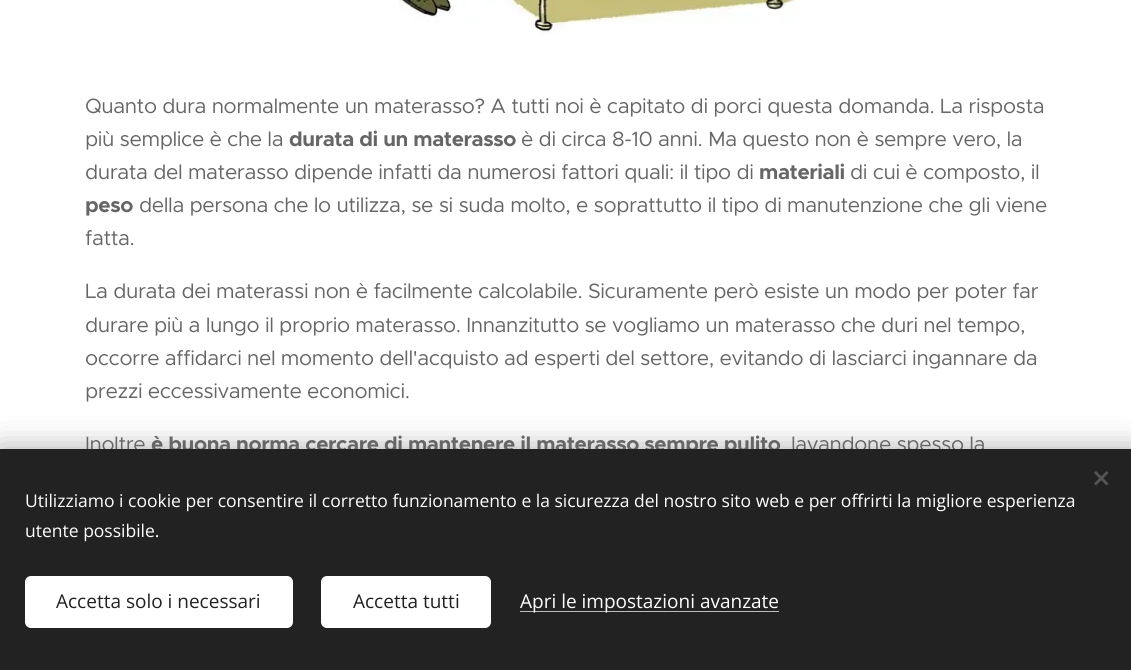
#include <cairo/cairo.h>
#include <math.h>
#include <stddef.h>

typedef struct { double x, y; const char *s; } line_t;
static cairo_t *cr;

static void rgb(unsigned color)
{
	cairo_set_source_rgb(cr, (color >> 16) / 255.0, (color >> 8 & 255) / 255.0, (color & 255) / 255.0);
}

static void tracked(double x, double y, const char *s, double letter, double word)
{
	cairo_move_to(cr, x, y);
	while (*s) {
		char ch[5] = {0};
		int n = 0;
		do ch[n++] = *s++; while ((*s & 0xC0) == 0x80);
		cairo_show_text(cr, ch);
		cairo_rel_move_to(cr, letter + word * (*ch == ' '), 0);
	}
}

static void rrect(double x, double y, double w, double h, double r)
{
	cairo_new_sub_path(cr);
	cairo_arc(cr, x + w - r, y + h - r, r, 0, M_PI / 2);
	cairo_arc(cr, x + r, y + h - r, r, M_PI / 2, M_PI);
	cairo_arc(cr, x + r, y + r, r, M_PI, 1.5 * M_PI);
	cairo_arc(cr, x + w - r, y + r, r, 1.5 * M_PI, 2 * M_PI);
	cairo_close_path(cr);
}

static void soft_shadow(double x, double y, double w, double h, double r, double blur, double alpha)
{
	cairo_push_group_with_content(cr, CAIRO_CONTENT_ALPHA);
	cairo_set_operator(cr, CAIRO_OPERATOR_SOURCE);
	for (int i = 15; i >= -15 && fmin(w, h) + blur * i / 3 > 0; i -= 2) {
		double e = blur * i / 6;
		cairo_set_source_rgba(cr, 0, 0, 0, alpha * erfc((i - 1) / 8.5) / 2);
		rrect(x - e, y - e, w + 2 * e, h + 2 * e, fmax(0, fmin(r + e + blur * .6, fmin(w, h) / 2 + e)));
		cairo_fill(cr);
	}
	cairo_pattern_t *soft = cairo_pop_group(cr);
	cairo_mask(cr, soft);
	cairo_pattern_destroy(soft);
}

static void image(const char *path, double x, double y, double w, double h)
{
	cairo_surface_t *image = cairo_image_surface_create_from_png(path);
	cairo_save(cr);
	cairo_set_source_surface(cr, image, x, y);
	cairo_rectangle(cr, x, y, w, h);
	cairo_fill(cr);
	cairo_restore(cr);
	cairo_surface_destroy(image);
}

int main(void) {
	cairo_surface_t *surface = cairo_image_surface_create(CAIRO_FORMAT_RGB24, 1131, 670);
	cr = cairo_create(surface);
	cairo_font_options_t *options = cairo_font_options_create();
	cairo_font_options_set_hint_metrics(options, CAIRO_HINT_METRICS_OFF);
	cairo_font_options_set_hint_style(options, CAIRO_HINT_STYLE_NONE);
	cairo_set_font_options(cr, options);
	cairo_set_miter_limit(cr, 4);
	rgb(0xffffff);
	cairo_paint(cr);
	image("img/1.png", 398, 0, 398, 34);
	rgb(0x000000);
	soft_shadow(0, 449, 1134, 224, 0, 15.5, 0.33);
	cairo_select_font_face(cr, "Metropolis", CAIRO_FONT_SLANT_NORMAL, CAIRO_FONT_WEIGHT_NORMAL);
	cairo_set_font_size(cr, 20.75);
	rgb(0x666666);
	tracked(85, 113, "Quanto dura normalmente un materasso? A tutti noi è capitato di porci questa domanda. La risposta", -0.4, 0);
	tracked(85, 146, "più semplice è che la", -0.4, 0);
	cairo_select_font_face(cr, "Metropolis", CAIRO_FONT_SLANT_NORMAL, CAIRO_FONT_WEIGHT_BOLD);
	tracked(289, 146, "durata di un materasso", -0.4, 0);
	cairo_select_font_face(cr, "Metropolis", CAIRO_FONT_SLANT_NORMAL, CAIRO_FONT_WEIGHT_NORMAL);
	tracked(521, 146, "è di circa 8-10 anni. Ma questo non è sempre vero, la", -0.4, 0);
	tracked(85, 179, "durata del materasso dipende infatti da numerosi fattori quali: il tipo di", -0.4, 0);
	cairo_select_font_face(cr, "Metropolis", CAIRO_FONT_SLANT_NORMAL, CAIRO_FONT_WEIGHT_BOLD);
	tracked(759, 179, "materiali", -0.4, 0);
	cairo_select_font_face(cr, "Metropolis", CAIRO_FONT_SLANT_NORMAL, CAIRO_FONT_WEIGHT_NORMAL);
	tracked(850, 179, "di cui è composto, il", -0.4, 0);
	cairo_select_font_face(cr, "Metropolis", CAIRO_FONT_SLANT_NORMAL, CAIRO_FONT_WEIGHT_BOLD);
	tracked(85, 212, "peso", -0.4, 0);
	cairo_select_font_face(cr, "Metropolis", CAIRO_FONT_SLANT_NORMAL, CAIRO_FONT_WEIGHT_NORMAL);
	{
		static const line_t items[] = {
			{139, 212, "della persona che lo utilizza, se si suda molto, e soprattutto il tipo di manutenzione che gli viene"},
			{85, 245, "fatta."},
			{85, 298, "La durata dei materassi non è facilmente calcolabile. Sicuramente però esiste un modo per poter far"},
			{85, 332, "durare più a lungo il proprio materasso. Innanzitutto se vogliamo un materasso che duri nel tempo,"},
			{85, 365, "occorre affidarci nel momento dell'acquisto ad esperti del settore, evitando di lasciarci ingannare da"},
			{85, 398, "prezzi eccessivamente economici."},
			{85, 451, "Inoltre"},
		};
		for (size_t i = 0; i < sizeof items / sizeof *items; i++) {
			tracked(items[i].x, items[i].y, items[i].s, -0.4, 0);
		}
	}
	cairo_select_font_face(cr, "Metropolis", CAIRO_FONT_SLANT_NORMAL, CAIRO_FONT_WEIGHT_BOLD);
	tracked(151, 451, "è buona norma cercare di mantenere il materasso sempre pulito", -0.4, 0);
	cairo_select_font_face(cr, "Metropolis", CAIRO_FONT_SLANT_NORMAL, CAIRO_FONT_WEIGHT_NORMAL);
	tracked(791, 451, "lavandone spesso la", -0.4, 0);
	rgb(0x222222);
	cairo_rectangle(cr, 0, 449, 1131, 221);
	cairo_fill(cr);
	rgb(0x555555);
	cairo_new_path(cr);
	cairo_move_to(cr, 1094, 483.5);
	cairo_line_to(cr, 1106.5, 471);
	cairo_line_to(cr, 1108.5, 473);
	cairo_line_to(cr, 1096, 485.5);
	cairo_close_path(cr);
	cairo_fill(cr);
	cairo_new_path(cr);
	cairo_move_to(cr, 1096, 471);
	cairo_line_to(cr, 1108.5, 483.5);
	cairo_line_to(cr, 1106.5, 485.5);
	cairo_line_to(cr, 1094, 473);
	cairo_close_path(cr);
	cairo_fill(cr);
	cairo_select_font_face(cr, "Open Sans", CAIRO_FONT_SLANT_NORMAL, CAIRO_FONT_WEIGHT_NORMAL);
	cairo_set_font_size(cr, 17.5);
	rgb(0xffffff);
	cairo_move_to(cr, 25, 507);
	cairo_show_text(cr, "Utilizziamo i cookie per consentire il corretto funzionamento e la sicurezza del nostro sito web e per offrirti la migliore esperienza");
	cairo_move_to(cr, 25, 537);
	cairo_show_text(cr, "utente possibile.");
	rrect(25, 576, 268, 52, 6);
	cairo_fill(cr);
	cairo_set_font_size(cr, 19);
	rgb(0x222222);
	cairo_move_to(cr, 56, 608);
	cairo_show_text(cr, "Accetta solo i necessari");
	rgb(0xffffff);
	rrect(321, 576, 170, 52, 6);
	cairo_fill(cr);
	rgb(0x222222);
	cairo_move_to(cr, 353, 608);
	cairo_show_text(cr, "Accetta tutti");
	rgb(0xbdbdbd);
	cairo_rectangle(cr, 520, 611, 259, 1);
	cairo_fill(cr);
	rgb(0xffffff);
	cairo_move_to(cr, 520, 608);
	cairo_show_text(cr, "Apri le impostazioni avanzate");
	cairo_surface_write_to_png(surface, "page.png");
	cairo_font_options_destroy(options);
	cairo_destroy(cr);
	cairo_surface_destroy(surface);
	return 0;
}
